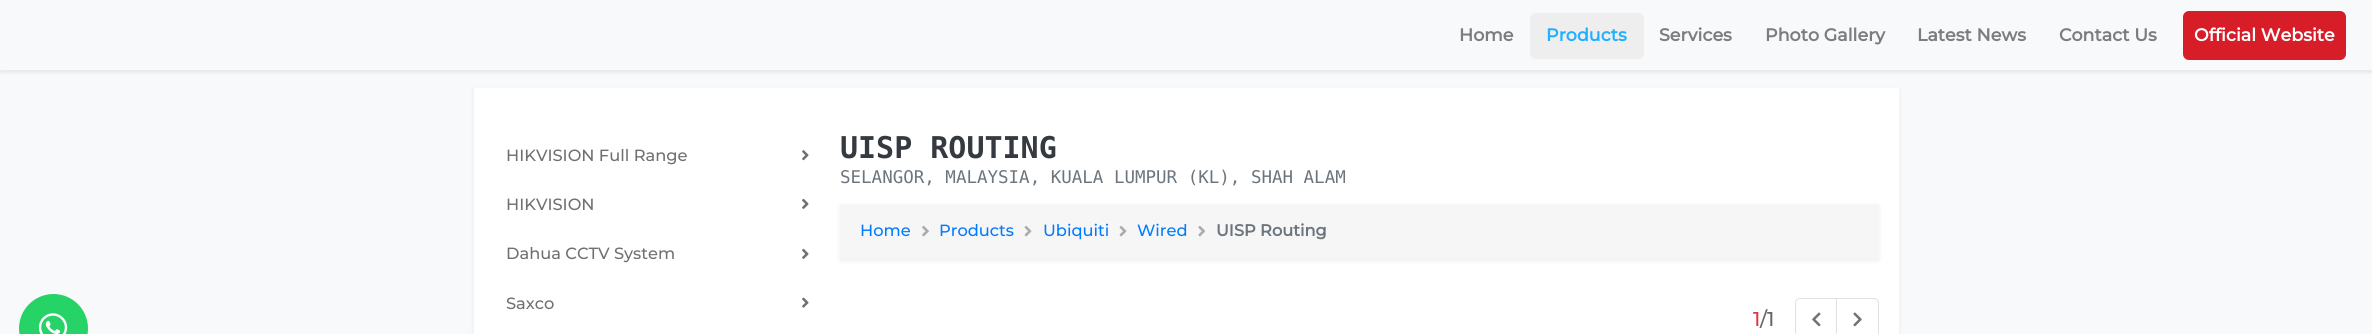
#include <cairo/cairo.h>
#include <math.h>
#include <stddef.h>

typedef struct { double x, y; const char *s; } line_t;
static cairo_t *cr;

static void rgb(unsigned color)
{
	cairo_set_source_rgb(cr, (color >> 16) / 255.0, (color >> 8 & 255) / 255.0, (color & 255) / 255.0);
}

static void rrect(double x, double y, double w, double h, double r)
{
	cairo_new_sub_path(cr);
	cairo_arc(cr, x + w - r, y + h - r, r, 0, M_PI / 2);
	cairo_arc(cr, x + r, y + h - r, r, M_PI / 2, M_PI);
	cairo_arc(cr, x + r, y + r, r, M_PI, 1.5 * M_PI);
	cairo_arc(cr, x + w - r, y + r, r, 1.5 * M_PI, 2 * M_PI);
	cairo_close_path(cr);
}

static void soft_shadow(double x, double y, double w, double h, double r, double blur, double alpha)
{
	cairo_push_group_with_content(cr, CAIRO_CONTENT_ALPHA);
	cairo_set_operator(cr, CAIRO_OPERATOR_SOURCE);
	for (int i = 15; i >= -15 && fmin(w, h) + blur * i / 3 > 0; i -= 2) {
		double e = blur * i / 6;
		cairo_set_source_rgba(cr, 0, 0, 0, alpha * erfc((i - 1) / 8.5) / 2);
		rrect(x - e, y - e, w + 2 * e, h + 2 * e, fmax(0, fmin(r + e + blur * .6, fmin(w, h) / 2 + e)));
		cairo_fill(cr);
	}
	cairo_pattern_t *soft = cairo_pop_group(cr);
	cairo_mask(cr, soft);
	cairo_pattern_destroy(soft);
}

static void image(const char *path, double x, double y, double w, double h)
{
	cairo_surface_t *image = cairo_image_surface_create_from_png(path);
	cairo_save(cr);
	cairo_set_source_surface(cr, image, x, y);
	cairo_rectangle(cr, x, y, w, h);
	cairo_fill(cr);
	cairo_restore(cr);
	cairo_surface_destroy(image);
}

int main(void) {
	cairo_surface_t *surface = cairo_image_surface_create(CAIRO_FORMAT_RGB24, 2372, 334);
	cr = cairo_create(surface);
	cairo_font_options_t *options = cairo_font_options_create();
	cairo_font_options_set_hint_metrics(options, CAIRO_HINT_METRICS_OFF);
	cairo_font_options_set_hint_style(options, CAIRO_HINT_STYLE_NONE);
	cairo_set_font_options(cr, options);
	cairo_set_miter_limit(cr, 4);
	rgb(0xf8f9fa);
	cairo_paint(cr);
	cairo_save(cr);
	cairo_rectangle(cr, 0, 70, 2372, 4);
	cairo_clip(cr);
	rgb(0x000000);
	soft_shadow(0, 3, 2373, 70, 0, 2.5, 0.07);
	cairo_restore(cr);
	rgb(0xeeeeee);
	rrect(1530, 13, 114, 46, 6);
	cairo_fill(cr);
	rgb(0xd71d28);
	rrect(2183, 11, 163, 49, 6);
	cairo_fill(cr);
	rgb(0x25d366);
	cairo_arc(cr, 53.5, 328.5, 34.5, 0, 2 * M_PI);
	cairo_fill(cr);
	image("img/1.png", 38, 313, 30, 21);
	rgb(0x000000);
	soft_shadow(474, 90, 1425, 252, 0, 2.5, 0.07);
	rgb(0xffffff);
	cairo_rectangle(cr, 474, 88, 1425, 246);
	cairo_fill(cr);
	image("img/2.png", 802, 150, 7, 11);
	image("img/3.png", 802, 198, 7, 11);
	image("img/3.png", 802, 248, 7, 11);
	image("img/4.png", 802, 297, 7, 11);
	rgb(0x000000);
	soft_shadow(840, 206, 1039, 55, 0, 2.5, 0.07);
	rgb(0xf6f6f6);
	cairo_rectangle(cr, 840, 204, 1039, 55);
	cairo_fill(cr);
	image("img/5.png", 922, 225, 7, 12);
	image("img/6.png", 1024, 226, 8, 11);
	image("img/6.png", 1119, 226, 8, 11);
	image("img/7.png", 1198, 226, 7, 11);
	cairo_new_path(cr);
	cairo_move_to(cr, 1800, 298.5);
	cairo_line_to(cr, 1837.5, 298.5);
	cairo_line_to(cr, 1837.5, 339.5);
	cairo_line_to(cr, 1800, 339.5);
	cairo_curve_to(cr, 1797.5, 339.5, 1795.5, 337.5, 1795.5, 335);
	cairo_line_to(cr, 1795.5, 303);
	cairo_curve_to(cr, 1795.5, 300.5, 1797.5, 298.5, 1800, 298.5);
	cairo_close_path(cr);
	rgb(0xdee2e6);
	cairo_set_line_width(cr, 1);
	cairo_stroke(cr);
	image("img/8.png", 1812, 312, 9, 15);
	rgb(0xffffff);
	cairo_new_path(cr);
	cairo_move_to(cr, 1836.5, 298.5);
	cairo_line_to(cr, 1874, 298.5);
	cairo_curve_to(cr, 1876.5, 298.5, 1878.5, 300.5, 1878.5, 303);
	cairo_line_to(cr, 1878.5, 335);
	cairo_curve_to(cr, 1878.5, 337.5, 1876.5, 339.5, 1874, 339.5);
	cairo_line_to(cr, 1836.5, 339.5);
	cairo_close_path(cr);
	cairo_fill_preserve(cr);
	rgb(0xdee2e6);
	cairo_stroke(cr);
	image("img/9.png", 1853, 312, 9, 15);
	cairo_select_font_face(cr, "Montserrat", CAIRO_FONT_SLANT_NORMAL, CAIRO_FONT_WEIGHT_BOLD);
	cairo_set_font_size(cr, 17.5);
	rgb(0x7c7d7d);
	cairo_move_to(cr, 1459, 41);
	cairo_show_text(cr, "Home");
	rgb(0x22b0ff);
	cairo_move_to(cr, 1546, 41);
	cairo_show_text(cr, "Products");
	rgb(0x7c7d7d);
	{
		static const line_t items[] = {
			{1659, 41, "Services"},
			{1765, 41, "Photo Gallery"},
			{1917, 41, "Latest News"},
			{2059, 41, "Contact Us"},
		};
		for (size_t i = 0; i < sizeof items / sizeof *items; i++) {
			cairo_move_to(cr, items[i].x, items[i].y);
			cairo_show_text(cr, items[i].s);
		}
	}
	rgb(0xffffff);
	cairo_move_to(cr, 2194, 41);
	cairo_show_text(cr, "Official Website");
	cairo_select_font_face(cr, "Montserrat Thin", CAIRO_FONT_SLANT_NORMAL, CAIRO_FONT_WEIGHT_NORMAL);
	cairo_set_font_size(cr, 16.25);
	rgb(0x707070);
	{
		static const line_t items[] = {
			{506, 161, "HIKVISION Full Range"},
			{506, 210, "HIKVISION"},
			{506, 259, "Dahua CCTV System"},
			{506, 309, "Saxco"},
		};
		for (size_t i = 0; i < sizeof items / sizeof *items; i++) {
			cairo_move_to(cr, items[i].x, items[i].y);
			cairo_show_text(cr, items[i].s);
		}
	}
	cairo_select_font_face(cr, "DejaVu Sans Mono", CAIRO_FONT_SLANT_NORMAL, CAIRO_FONT_WEIGHT_BOLD);
	cairo_set_font_size(cr, 30);
	rgb(0x343a40);
	cairo_move_to(cr, 840, 158);
	cairo_show_text(cr, "UISP ROUTING");
	cairo_select_font_face(cr, "DejaVu Sans Mono", CAIRO_FONT_SLANT_NORMAL, CAIRO_FONT_WEIGHT_NORMAL);
	cairo_set_font_size(cr, 17.5);
	rgb(0x6c757d);
	cairo_move_to(cr, 840, 183);
	cairo_show_text(cr, "SELANGOR, MALAYSIA, KUALA LUMPUR (KL), SHAH ALAM");
	cairo_select_font_face(cr, "Montserrat Thin", CAIRO_FONT_SLANT_NORMAL, CAIRO_FONT_WEIGHT_NORMAL);
	cairo_set_font_size(cr, 16.25);
	rgb(0x007bff);
	{
		static const line_t items[] = {
			{860, 236, "Home"},
			{939, 236, "Products"},
			{1043, 236, "Ubiquiti"},
			{1137, 236, "Wired"},
		};
		for (size_t i = 0; i < sizeof items / sizeof *items; i++) {
			cairo_move_to(cr, items[i].x, items[i].y);
			cairo_show_text(cr, items[i].s);
		}
	}
	cairo_select_font_face(cr, "Montserrat", CAIRO_FONT_SLANT_NORMAL, CAIRO_FONT_WEIGHT_BOLD);
	rgb(0x6c757d);
	cairo_move_to(cr, 1216, 236);
	cairo_show_text(cr, "UISP Routing");
	cairo_select_font_face(cr, "Montserrat Thin", CAIRO_FONT_SLANT_NORMAL, CAIRO_FONT_WEIGHT_NORMAL);
	cairo_set_font_size(cr, 20);
	rgb(0xdc3545);
	cairo_move_to(cr, 1753, 326);
	cairo_show_text(cr, "1");
	rgb(0x666666);
	cairo_move_to(cr, 1760, 326);
	cairo_show_text(cr, "/1");
	cairo_surface_write_to_png(surface, "page.png");
	cairo_font_options_destroy(options);
	cairo_destroy(cr);
	cairo_surface_destroy(surface);
	return 0;
}
